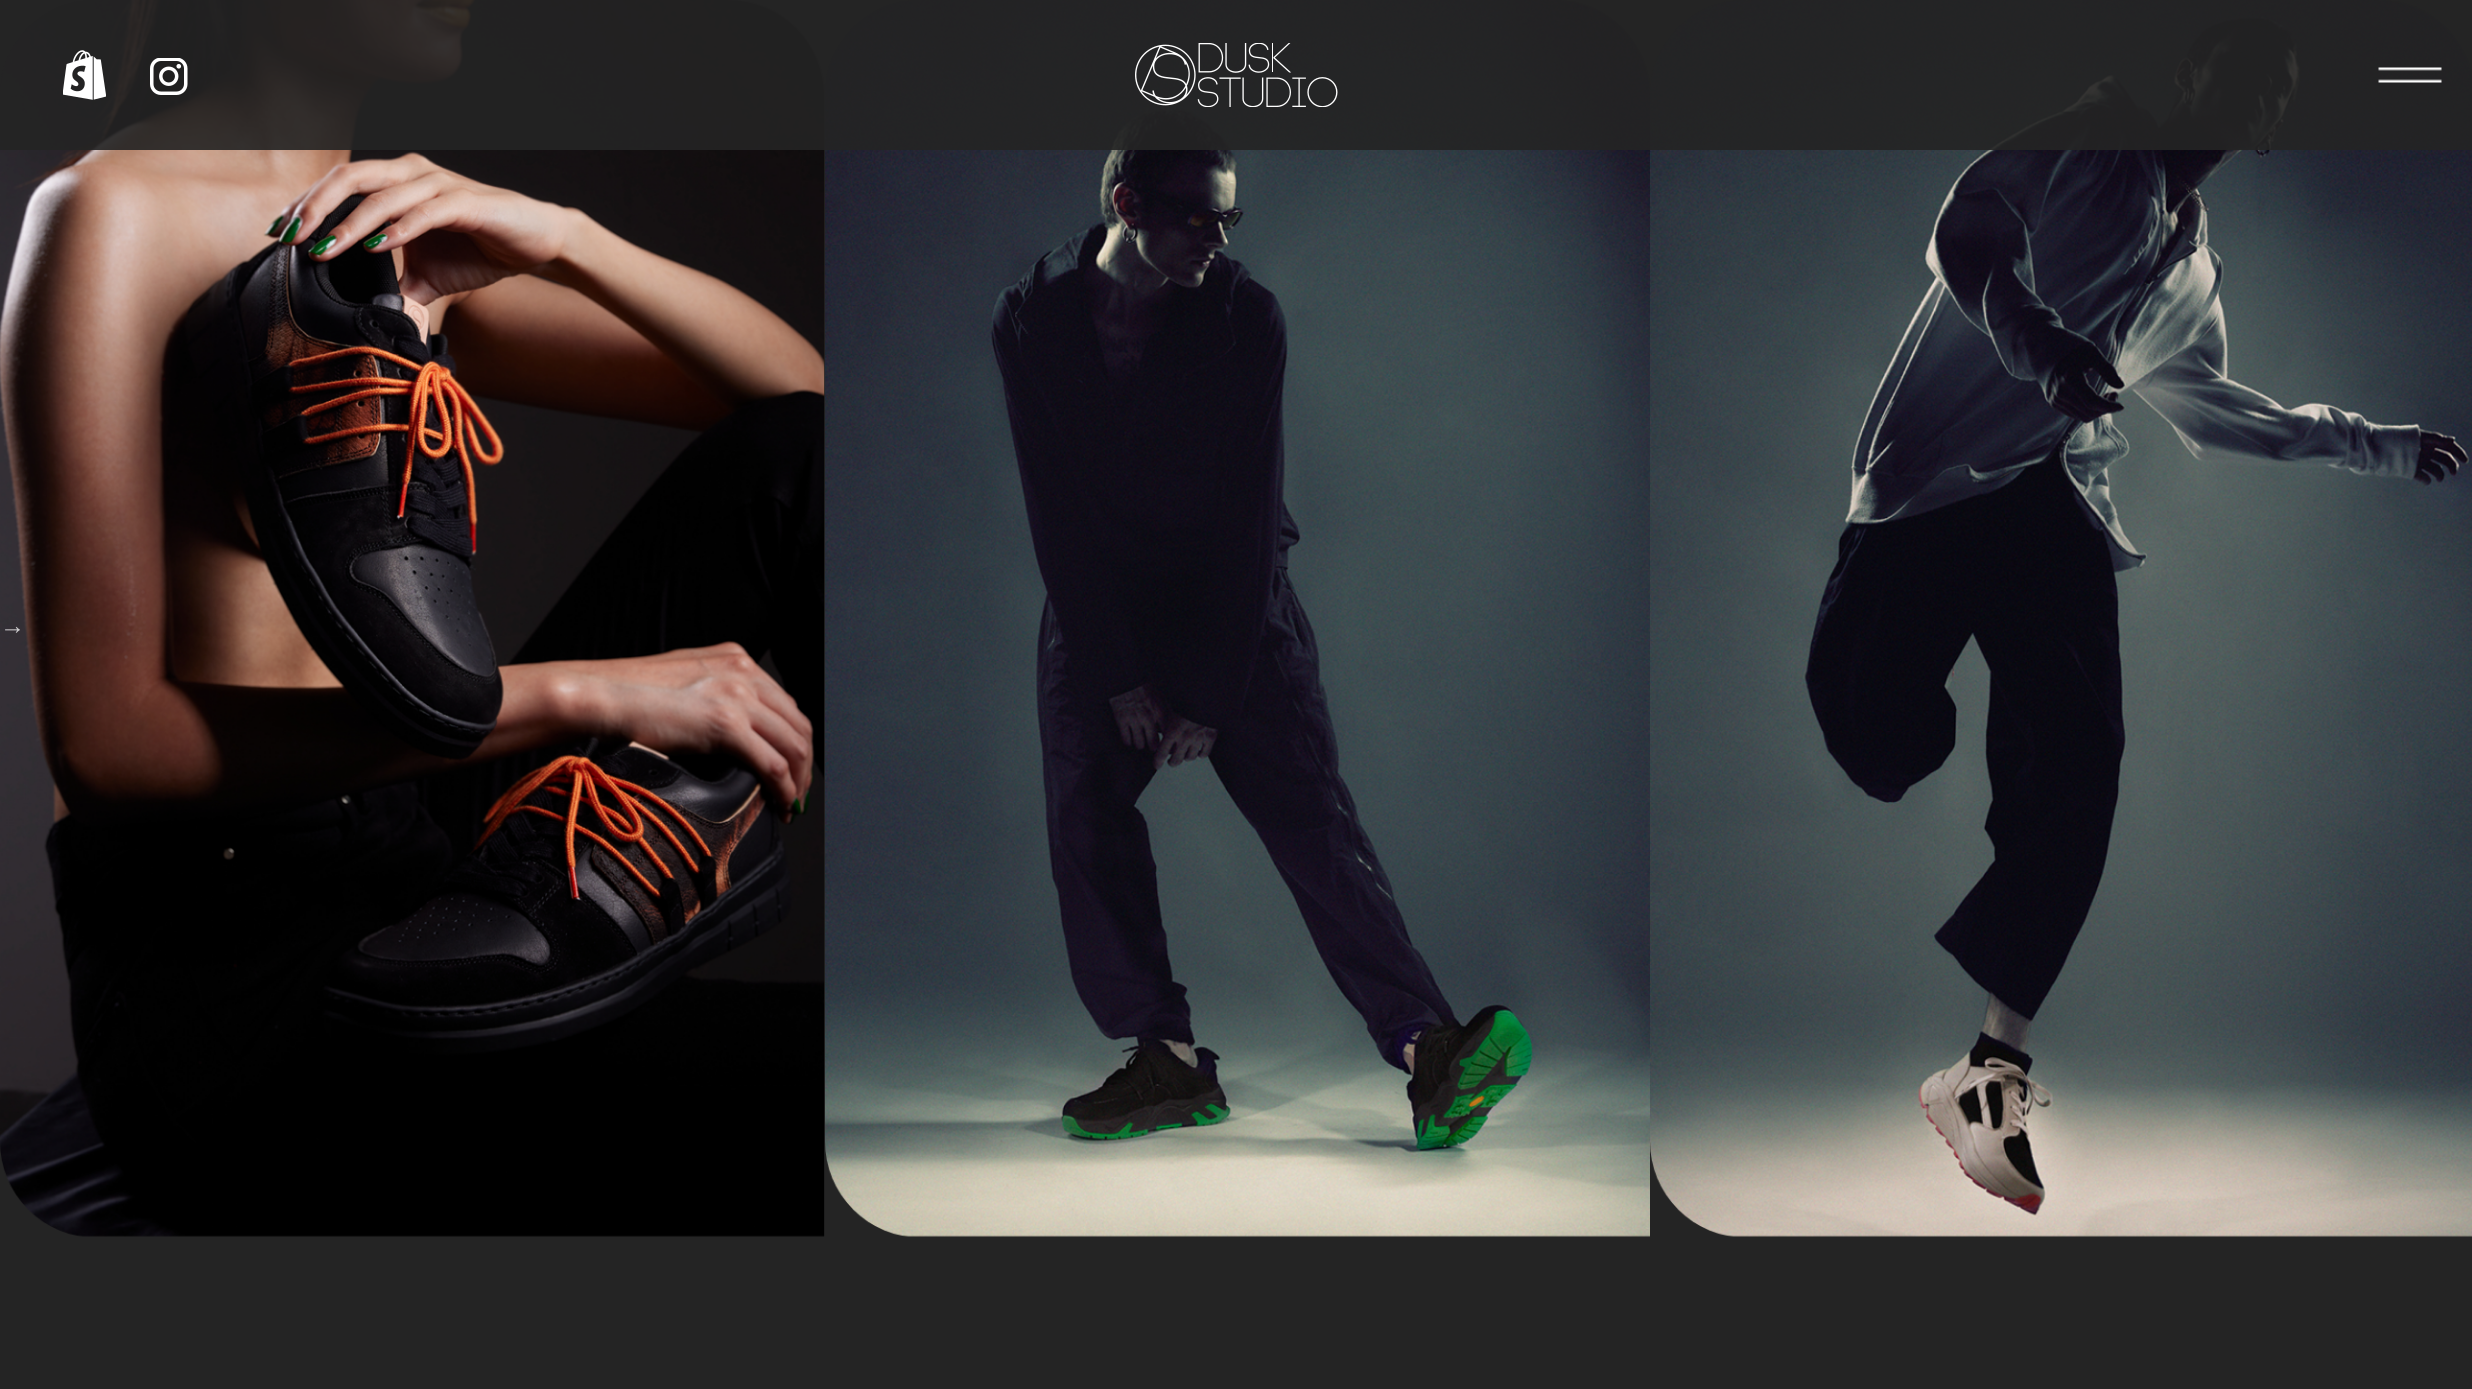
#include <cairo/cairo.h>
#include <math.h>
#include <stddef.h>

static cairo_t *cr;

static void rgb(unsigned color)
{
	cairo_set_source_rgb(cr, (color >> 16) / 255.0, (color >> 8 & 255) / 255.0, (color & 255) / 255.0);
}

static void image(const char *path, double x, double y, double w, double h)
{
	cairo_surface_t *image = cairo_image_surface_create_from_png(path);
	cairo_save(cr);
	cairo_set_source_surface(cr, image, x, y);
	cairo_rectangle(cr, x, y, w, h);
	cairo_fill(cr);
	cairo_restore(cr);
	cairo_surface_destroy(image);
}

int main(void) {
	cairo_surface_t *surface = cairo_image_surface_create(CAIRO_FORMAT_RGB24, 2472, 1389);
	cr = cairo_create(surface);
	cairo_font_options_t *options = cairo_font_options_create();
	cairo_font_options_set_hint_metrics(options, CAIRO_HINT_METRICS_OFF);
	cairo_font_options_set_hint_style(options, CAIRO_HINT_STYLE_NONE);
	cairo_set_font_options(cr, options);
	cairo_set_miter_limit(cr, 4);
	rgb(0x242424);
	cairo_paint(cr);
	image("img/5.png", 0, 0, 825, 1237);
	image("img/6.png", 825, 0, 825, 1237);
	image("img/7.png", 1650, 0, 822, 1237);
	cairo_set_source_rgba(cr, 0.141, 0.141, 0.141, 0.9);
	cairo_rectangle(cr, 0, 0, 2472, 150);
	cairo_fill(cr);
	image("img/1.png", 63, 50, 43, 50);
	image("img/2.png", 150, 58, 38, 37);
	image("img/3.png", 1135, 43, 203, 64);
	image("img/4.png", 2378, 67, 64, 16);
	cairo_select_font_face(cr, "Liberation Serif", CAIRO_FONT_SLANT_NORMAL, CAIRO_FONT_WEIGHT_NORMAL);
	cairo_set_font_size(cr, 25);
	rgb(0xcccbcd);
	cairo_move_to(cr, 0, 634);
	cairo_show_text(cr, "→");
	cairo_surface_write_to_png(surface, "page.png");
	cairo_font_options_destroy(options);
	cairo_destroy(cr);
	cairo_surface_destroy(surface);
	return 0;
}
